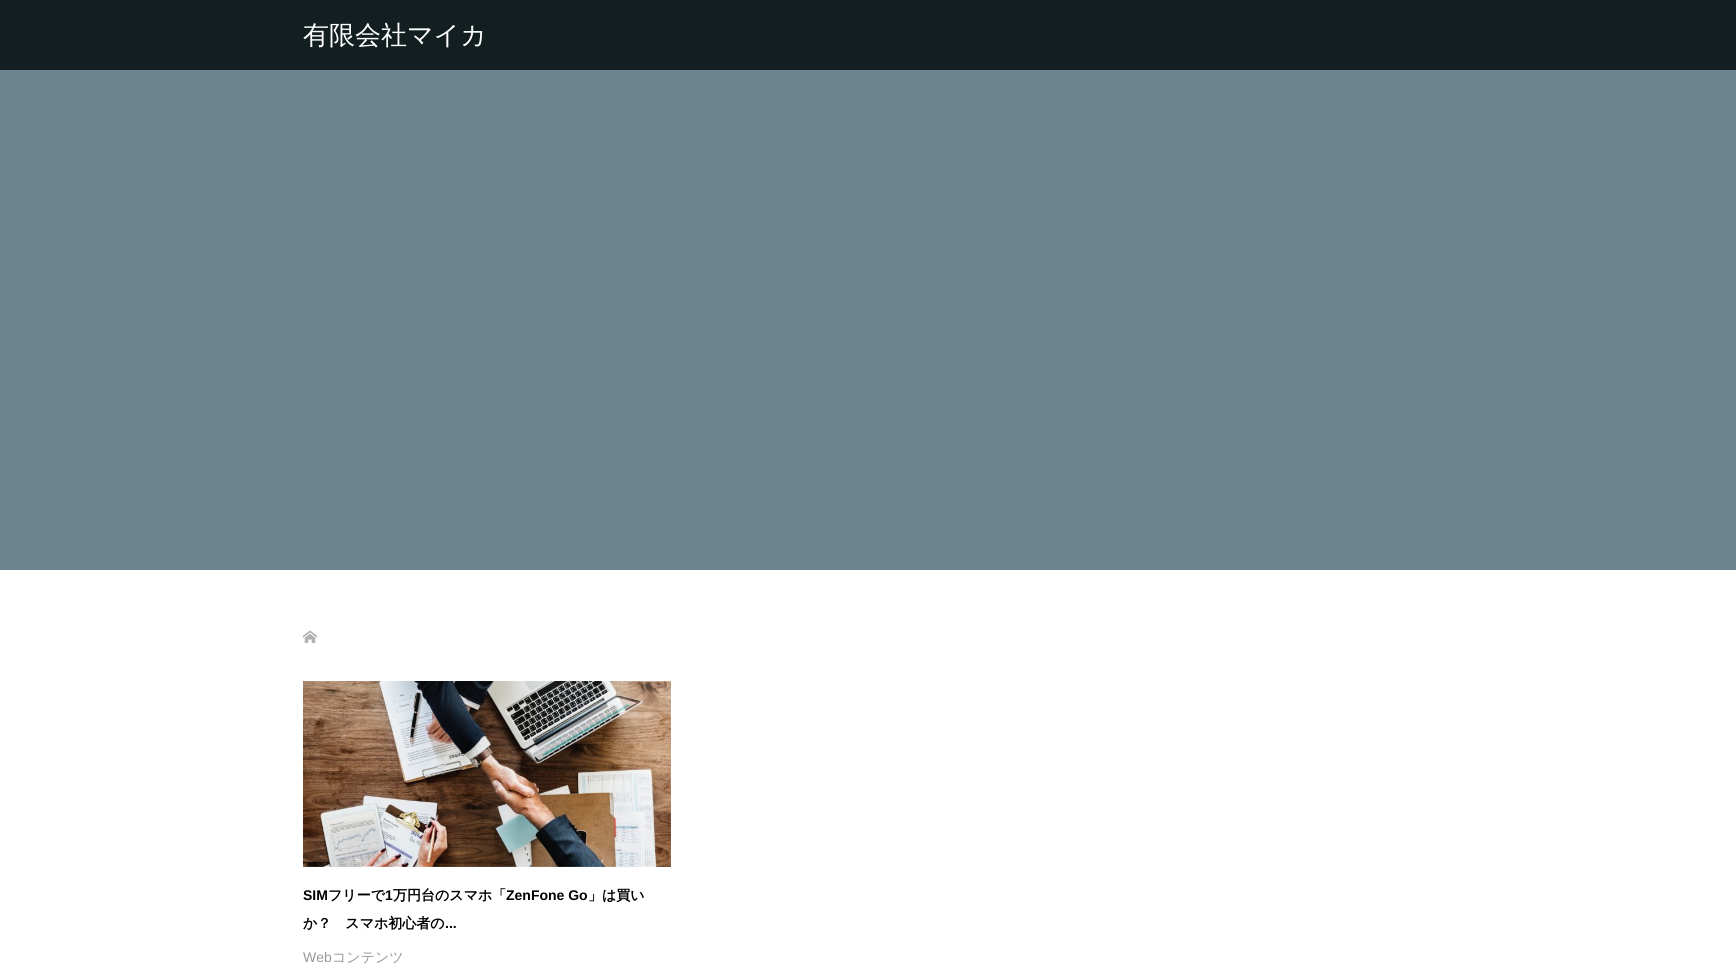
#include <cairo/cairo.h>
#include <math.h>
#include <stddef.h>

static cairo_t *cr;

static void rgb(unsigned color)
{
	cairo_set_source_rgb(cr, (color >> 16) / 255.0, (color >> 8 & 255) / 255.0, (color & 255) / 255.0);
}

static void image(const char *path, double x, double y, double w, double h)
{
	cairo_surface_t *image = cairo_image_surface_create_from_png(path);
	cairo_save(cr);
	cairo_set_source_surface(cr, image, x, y);
	cairo_rectangle(cr, x, y, w, h);
	cairo_fill(cr);
	cairo_restore(cr);
	cairo_surface_destroy(image);
}

int main(void) {
	cairo_surface_t *surface = cairo_image_surface_create(CAIRO_FORMAT_RGB24, 1736, 979);
	cr = cairo_create(surface);
	cairo_font_options_t *options = cairo_font_options_create();
	cairo_font_options_set_hint_metrics(options, CAIRO_HINT_METRICS_OFF);
	cairo_font_options_set_hint_style(options, CAIRO_HINT_STYLE_NONE);
	cairo_set_font_options(cr, options);
	cairo_set_miter_limit(cr, 4);
	rgb(0xffffff);
	cairo_paint(cr);
	rgb(0x121e1f);
	cairo_rectangle(cr, 0, 0, 1736, 70);
	cairo_fill(cr);
	rgb(0x6d8491);
	cairo_rectangle(cr, 0, 70, 1736, 500);
	cairo_fill(cr);
	image("img/1.png", 303, 630, 14, 13);
	image("img/2.png", 303, 681, 368, 186);
	cairo_select_font_face(cr, "WenQuanYi Zen Hei Medium", CAIRO_FONT_SLANT_NORMAL, CAIRO_FONT_WEIGHT_NORMAL);
	cairo_set_font_size(cr, 26);
	rgb(0xffffff);
	cairo_move_to(cr, 303, 44);
	cairo_show_text(cr, "有限会社マイカ");
	cairo_select_font_face(cr, "Liberation Sans", CAIRO_FONT_SLANT_NORMAL, CAIRO_FONT_WEIGHT_BOLD);
	cairo_set_font_size(cr, 14);
	rgb(0x000000);
	cairo_move_to(cr, 303, 900);
	cairo_show_text(cr, "SIM");
	cairo_select_font_face(cr, "WenQuanYi Zen Hei", CAIRO_FONT_SLANT_NORMAL, CAIRO_FONT_WEIGHT_BOLD);
	cairo_move_to(cr, 328, 900);
	cairo_show_text(cr, "フリーで");
	cairo_select_font_face(cr, "Liberation Sans", CAIRO_FONT_SLANT_NORMAL, CAIRO_FONT_WEIGHT_BOLD);
	cairo_move_to(cr, 385, 900);
	cairo_show_text(cr, "1");
	cairo_select_font_face(cr, "WenQuanYi Zen Hei", CAIRO_FONT_SLANT_NORMAL, CAIRO_FONT_WEIGHT_BOLD);
	cairo_move_to(cr, 393, 900);
	cairo_show_text(cr, "万円台のスマホ「");
	cairo_select_font_face(cr, "Liberation Sans", CAIRO_FONT_SLANT_NORMAL, CAIRO_FONT_WEIGHT_BOLD);
	cairo_move_to(cr, 506, 900);
	cairo_show_text(cr, "ZenFone Go");
	cairo_select_font_face(cr, "WenQuanYi Zen Hei", CAIRO_FONT_SLANT_NORMAL, CAIRO_FONT_WEIGHT_BOLD);
	cairo_move_to(cr, 588, 900);
	cairo_show_text(cr, "」は買い");
	cairo_move_to(cr, 303, 928);
	cairo_show_text(cr, "か？　スマホ初心者の");
	cairo_select_font_face(cr, "Liberation Sans", CAIRO_FONT_SLANT_NORMAL, CAIRO_FONT_WEIGHT_BOLD);
	cairo_move_to(cr, 445, 928);
	cairo_show_text(cr, "...");
	cairo_select_font_face(cr, "Liberation Sans", CAIRO_FONT_SLANT_NORMAL, CAIRO_FONT_WEIGHT_NORMAL);
	rgb(0x999999);
	cairo_move_to(cr, 303, 962);
	cairo_show_text(cr, "Web");
	cairo_select_font_face(cr, "WenQuanYi Zen Hei Medium", CAIRO_FONT_SLANT_NORMAL, CAIRO_FONT_WEIGHT_NORMAL);
	cairo_move_to(cr, 332, 962);
	cairo_show_text(cr, "コンテンツ");
	cairo_surface_write_to_png(surface, "page.png");
	cairo_font_options_destroy(options);
	cairo_destroy(cr);
	cairo_surface_destroy(surface);
	return 0;
}
